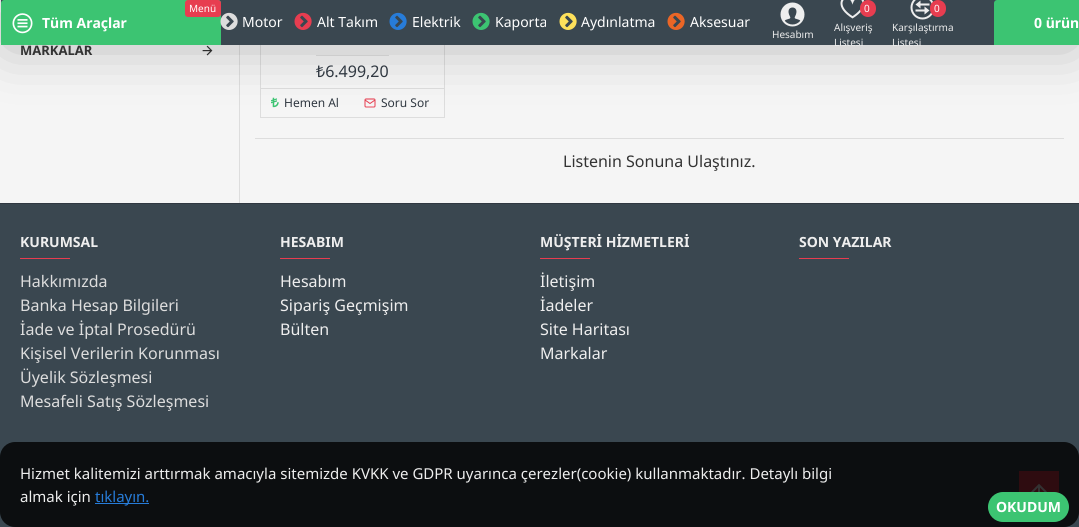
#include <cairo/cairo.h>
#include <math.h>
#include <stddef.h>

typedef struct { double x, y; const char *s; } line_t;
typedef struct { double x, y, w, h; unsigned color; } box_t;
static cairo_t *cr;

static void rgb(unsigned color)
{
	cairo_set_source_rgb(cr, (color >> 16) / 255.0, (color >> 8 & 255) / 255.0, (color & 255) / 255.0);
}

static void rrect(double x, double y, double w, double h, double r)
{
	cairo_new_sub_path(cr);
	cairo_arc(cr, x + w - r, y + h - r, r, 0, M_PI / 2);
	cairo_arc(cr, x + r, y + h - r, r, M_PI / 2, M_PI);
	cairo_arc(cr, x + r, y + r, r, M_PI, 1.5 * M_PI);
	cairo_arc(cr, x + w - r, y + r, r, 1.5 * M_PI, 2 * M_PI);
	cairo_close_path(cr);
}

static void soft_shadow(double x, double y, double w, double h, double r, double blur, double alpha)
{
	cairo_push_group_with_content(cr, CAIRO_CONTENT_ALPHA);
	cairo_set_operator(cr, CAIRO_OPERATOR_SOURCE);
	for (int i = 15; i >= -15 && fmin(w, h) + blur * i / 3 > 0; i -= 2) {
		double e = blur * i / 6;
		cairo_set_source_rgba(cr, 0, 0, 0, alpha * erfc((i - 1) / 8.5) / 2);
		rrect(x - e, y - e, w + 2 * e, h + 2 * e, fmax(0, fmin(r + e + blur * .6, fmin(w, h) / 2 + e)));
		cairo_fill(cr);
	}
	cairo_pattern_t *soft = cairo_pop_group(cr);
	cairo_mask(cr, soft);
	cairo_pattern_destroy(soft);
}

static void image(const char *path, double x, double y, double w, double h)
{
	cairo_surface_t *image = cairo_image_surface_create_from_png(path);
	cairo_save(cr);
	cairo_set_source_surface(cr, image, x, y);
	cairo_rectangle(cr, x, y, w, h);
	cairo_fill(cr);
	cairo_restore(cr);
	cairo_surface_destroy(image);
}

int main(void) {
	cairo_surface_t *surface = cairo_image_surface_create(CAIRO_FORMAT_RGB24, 1079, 527);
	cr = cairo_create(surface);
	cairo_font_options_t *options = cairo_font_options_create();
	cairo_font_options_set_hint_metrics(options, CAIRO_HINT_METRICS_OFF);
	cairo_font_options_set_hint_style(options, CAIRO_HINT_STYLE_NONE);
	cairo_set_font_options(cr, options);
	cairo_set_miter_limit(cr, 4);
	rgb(0xf5f5f5);
	cairo_paint(cr);
	rgb(0xdddddd);
	cairo_rectangle(cr, 239, 45, 1, 158);
	cairo_fill(cr);
	image("img/11.png", 202, 45, 11, 11);
	cairo_rectangle(cr, 260.5, -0.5, 184, 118);
	cairo_set_line_width(cr, 1);
	cairo_stroke(cr);
	cairo_rectangle(cr, 316, 55, 73, 1);
	cairo_fill(cr);
	cairo_rectangle(cr, 261, 88, 183, 1);
	cairo_fill(cr);
	image("img/12.png", 271, 97, 8, 11);
	image("img/13.png", 364, 98, 12, 10);
	rgb(0x000000);
	soft_shadow(11, 15, 1059, 25, 0, 30, 0.3);
	rgb(0x3a4750);
	cairo_rectangle(cr, 1, 0, 996, 45);
	cairo_fill(cr);
	rgb(0x3cc472);
	cairo_new_path(cr);
	cairo_move_to(cr, 4, 0);
	cairo_line_to(cr, 218, 0);
	cairo_curve_to(cr, 219.5, 0, 221, 1.5, 221, 3);
	cairo_line_to(cr, 221, 45);
	cairo_line_to(cr, 1, 45);
	cairo_line_to(cr, 1, 3);
	cairo_curve_to(cr, 1, 1.5, 2.5, 0, 4, 0);
	cairo_close_path(cr);
	cairo_fill(cr);
	rgb(0xe73d50);
	rrect(185, 0, 36, 17, 3);
	cairo_fill(cr);
	image("img/1.png", 12, 13, 21, 21);
	image("img/2.png", 220, 12, 18, 18);
	image("img/3.png", 294, 12, 18, 18);
	image("img/4.png", 389, 12, 18, 18);
	image("img/5.png", 472, 12, 18, 18);
	image("img/6.png", 559, 12, 18, 18);
	image("img/7.png", 667, 12, 18, 18);
	image("img/8.png", 780, 2, 25, 25);
	image("img/9.png", 840, 0, 25, 19);
	rrect(860, 0, 16, 17, 8);
	cairo_fill(cr);
	image("img/10.png", 910, 0, 23, 20);
	rrect(930, 0, 16, 17, 8);
	cairo_fill(cr);
	rgb(0x3cc472);
	cairo_new_path(cr);
	cairo_move_to(cr, 997, 0);
	cairo_line_to(cr, 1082, 0);
	cairo_line_to(cr, 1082, 45);
	cairo_line_to(cr, 994, 45);
	cairo_line_to(cr, 994, 3);
	cairo_curve_to(cr, 994, 1.5, 995.5, 0, 997, 0);
	cairo_close_path(cr);
	cairo_fill(cr);
	{
		static const box_t items[] = {
			{255, 138, 809, 1, 0xdddddd},
			{0, 204, 1079, 323, 0x3a4750},
			{0, 203, 1079, 1, 0x303841},
			{20, 258, 50, 1, 0xe73d50},
			{280, 258, 50, 1, 0xe73d50},
			{540, 258, 50, 1, 0xe73d50},
			{799, 258, 50, 1, 0xe73d50},
			{1019, 471, 40, 22, 0xe73d50},
		};
		for (size_t i = 0; i < sizeof items / sizeof *items; i++) {
			rgb(items[i].color);
			cairo_rectangle(cr, items[i].x, items[i].y, items[i].w, items[i].h);
			cairo_fill(cr);
		}
	}
	image("img/14.png", 1031, 483, 16, 9);
	cairo_set_source_rgba(cr, 0, 0, 0, 0.8);
	rrect(0, 442, 1079, 85, 15);
	cairo_fill(cr);
	rgb(0x277cd9);
	cairo_rectangle(cr, 95, 503, 54, 1);
	cairo_fill(cr);
	rgb(0x3cc472);
	rrect(988, 492, 81, 30, 15);
	cairo_fill(cr);
	cairo_select_font_face(cr, "Noto Sans", CAIRO_FONT_SLANT_NORMAL, CAIRO_FONT_WEIGHT_NORMAL);
	cairo_set_font_size(cr, 10);
	rgb(0xffffff);
	cairo_move_to(cr, 189, 12);
	cairo_show_text(cr, "Menü");
	cairo_select_font_face(cr, "Noto Sans", CAIRO_FONT_SLANT_NORMAL, CAIRO_FONT_WEIGHT_BOLD);
	cairo_set_font_size(cr, 14);
	cairo_move_to(cr, 42, 28);
	cairo_show_text(cr, "Tüm Araçlar");
	cairo_select_font_face(cr, "Noto Sans", CAIRO_FONT_SLANT_NORMAL, CAIRO_FONT_WEIGHT_NORMAL);
	{
		static const line_t items[] = {
			{242, 27, "Motor"},
			{317, 27, "Alt Takım"},
			{412, 27, "Elektrik"},
			{495, 27, "Kaporta"},
			{581, 27, "Aydınlatma"},
			{690, 27, "Aksesuar"},
		};
		for (size_t i = 0; i < sizeof items / sizeof *items; i++) {
			cairo_move_to(cr, items[i].x, items[i].y);
			cairo_show_text(cr, items[i].s);
		}
	}
	cairo_set_font_size(cr, 10);
	rgb(0xeeeeee);
	cairo_move_to(cr, 772, 38);
	cairo_show_text(cr, "Hesabım");
	rgb(0xffffff);
	cairo_move_to(cr, 864, 12);
	cairo_show_text(cr, "0");
	rgb(0xeeeeee);
	cairo_move_to(cr, 834, 31);
	cairo_show_text(cr, "Alışveriş");
	cairo_move_to(cr, 834, 46);
	cairo_show_text(cr, "Listesi");
	rgb(0xffffff);
	cairo_move_to(cr, 934, 12);
	cairo_show_text(cr, "0");
	rgb(0xeeeeee);
	cairo_move_to(cr, 892, 31);
	cairo_show_text(cr, "Karşılaştırma");
	cairo_move_to(cr, 892, 46);
	cairo_show_text(cr, "Listesi");
	cairo_select_font_face(cr, "Noto Sans", CAIRO_FONT_SLANT_NORMAL, CAIRO_FONT_WEIGHT_BOLD);
	cairo_set_font_size(cr, 14);
	rgb(0xffffff);
	cairo_move_to(cr, 1034, 28);
	cairo_show_text(cr, "0 ürün");
	cairo_set_font_size(cr, 13);
	rgb(0x333333);
	cairo_move_to(cr, 20, 55);
	cairo_show_text(cr, "MARKALAR");
	cairo_select_font_face(cr, "Noto Sans", CAIRO_FONT_SLANT_NORMAL, CAIRO_FONT_WEIGHT_NORMAL);
	cairo_set_font_size(cr, 16);
	rgb(0x303841);
	cairo_move_to(cr, 316, 77);
	cairo_show_text(cr, "₺6.499,20");
	cairo_set_font_size(cr, 12);
	cairo_move_to(cr, 284, 107);
	cairo_show_text(cr, "Hemen Al");
	cairo_move_to(cr, 381, 107);
	cairo_show_text(cr, "Soru Sor");
	cairo_set_font_size(cr, 16);
	rgb(0x333333);
	cairo_move_to(cr, 563, 167);
	cairo_show_text(cr, "Listenin Sonuna Ulaştınız.");
	cairo_select_font_face(cr, "Noto Sans", CAIRO_FONT_SLANT_NORMAL, CAIRO_FONT_WEIGHT_BOLD);
	cairo_set_font_size(cr, 14);
	rgb(0xeeeeee);
	cairo_move_to(cr, 20, 247);
	cairo_show_text(cr, "KURUMSAL");
	cairo_select_font_face(cr, "Noto Sans", CAIRO_FONT_SLANT_NORMAL, CAIRO_FONT_WEIGHT_NORMAL);
	cairo_set_font_size(cr, 16);
	rgb(0xdddddd);
	{
		static const line_t items[] = {
			{20, 287, "Hakkımızda"},
			{20, 311, "Banka Hesap Bilgileri"},
			{20, 335, "İade ve İptal Prosedürü"},
			{20, 359, "Kişisel Verilerin Korunması"},
			{20, 383, "Üyelik Sözleşmesi"},
			{20, 407, "Mesafeli Satış Sözleşmesi"},
		};
		for (size_t i = 0; i < sizeof items / sizeof *items; i++) {
			cairo_move_to(cr, items[i].x, items[i].y);
			cairo_show_text(cr, items[i].s);
		}
	}
	cairo_select_font_face(cr, "Noto Sans", CAIRO_FONT_SLANT_NORMAL, CAIRO_FONT_WEIGHT_BOLD);
	cairo_set_font_size(cr, 14);
	rgb(0xeeeeee);
	cairo_move_to(cr, 280, 247);
	cairo_show_text(cr, "HESABIM");
	cairo_select_font_face(cr, "Noto Sans", CAIRO_FONT_SLANT_NORMAL, CAIRO_FONT_WEIGHT_NORMAL);
	cairo_set_font_size(cr, 16);
	{
		static const line_t items[] = {
			{280, 287, "Hesabım"},
			{280, 311, "Sipariş Geçmişim"},
			{280, 335, "Bülten"},
		};
		for (size_t i = 0; i < sizeof items / sizeof *items; i++) {
			cairo_move_to(cr, items[i].x, items[i].y);
			cairo_show_text(cr, items[i].s);
		}
	}
	cairo_select_font_face(cr, "Noto Sans", CAIRO_FONT_SLANT_NORMAL, CAIRO_FONT_WEIGHT_BOLD);
	cairo_set_font_size(cr, 14);
	cairo_move_to(cr, 540, 247);
	cairo_show_text(cr, "MÜŞTERİ HİZMETLERİ");
	cairo_select_font_face(cr, "Noto Sans", CAIRO_FONT_SLANT_NORMAL, CAIRO_FONT_WEIGHT_NORMAL);
	cairo_set_font_size(cr, 16);
	{
		static const line_t items[] = {
			{540, 287, "İletişim"},
			{540, 311, "İadeler"},
			{540, 335, "Site Haritası"},
			{540, 359, "Markalar"},
		};
		for (size_t i = 0; i < sizeof items / sizeof *items; i++) {
			cairo_move_to(cr, items[i].x, items[i].y);
			cairo_show_text(cr, items[i].s);
		}
	}
	cairo_select_font_face(cr, "Noto Sans", CAIRO_FONT_SLANT_NORMAL, CAIRO_FONT_WEIGHT_BOLD);
	cairo_set_font_size(cr, 14);
	cairo_move_to(cr, 799, 247);
	cairo_show_text(cr, "SON YAZILAR");
	cairo_select_font_face(cr, "Noto Sans", CAIRO_FONT_SLANT_NORMAL, CAIRO_FONT_WEIGHT_NORMAL);
	cairo_set_font_size(cr, 15);
	cairo_move_to(cr, 20, 479);
	cairo_show_text(cr, "Hizmet kalitemizi arttırmak amacıyla sitemizde KVKK ve GDPR uyarınca çerezler(cookie) kullanmaktadır. Detaylı bilgi");
	cairo_move_to(cr, 20, 502);
	cairo_show_text(cr, "almak için");
	rgb(0x277cd9);
	cairo_move_to(cr, 95, 502);
	cairo_show_text(cr, "tıklayın.");
	cairo_select_font_face(cr, "Noto Sans", CAIRO_FONT_SLANT_NORMAL, CAIRO_FONT_WEIGHT_BOLD);
	cairo_set_font_size(cr, 14);
	rgb(0xffffff);
	cairo_move_to(cr, 996, 512);
	cairo_show_text(cr, "OKUDUM");
	cairo_surface_write_to_png(surface, "page.png");
	cairo_font_options_destroy(options);
	cairo_destroy(cr);
	cairo_surface_destroy(surface);
	return 0;
}
